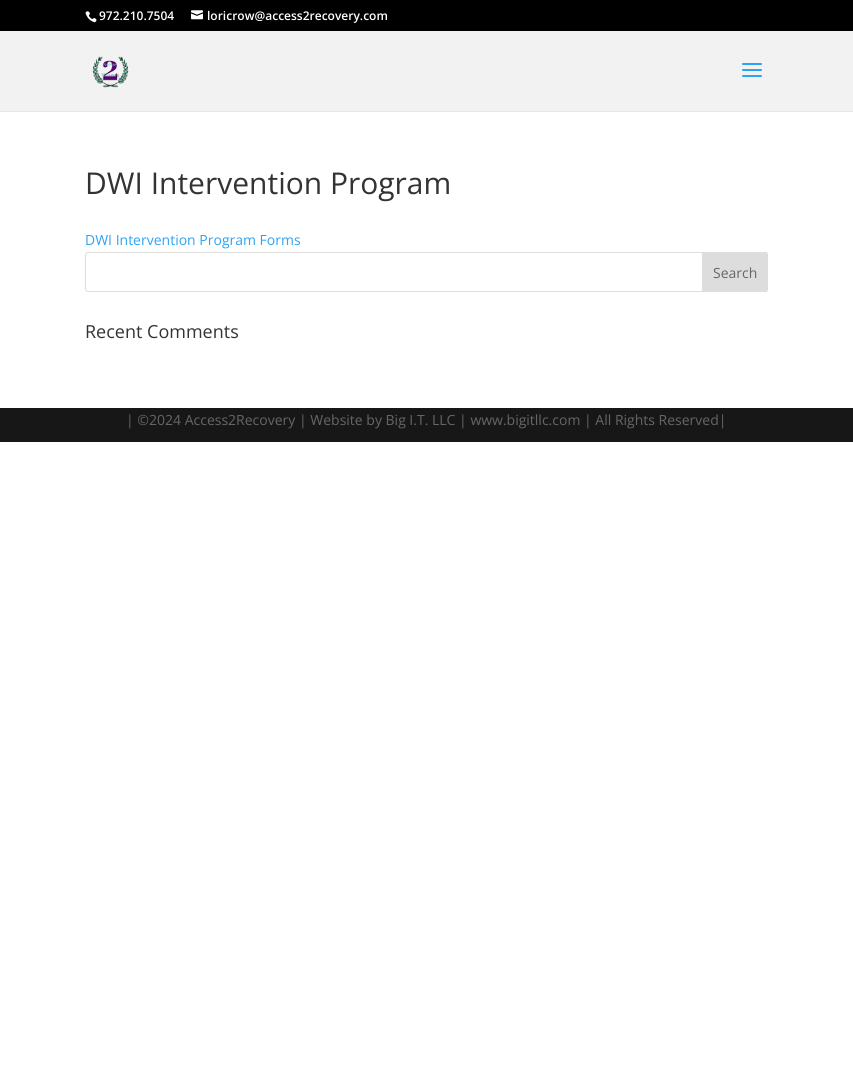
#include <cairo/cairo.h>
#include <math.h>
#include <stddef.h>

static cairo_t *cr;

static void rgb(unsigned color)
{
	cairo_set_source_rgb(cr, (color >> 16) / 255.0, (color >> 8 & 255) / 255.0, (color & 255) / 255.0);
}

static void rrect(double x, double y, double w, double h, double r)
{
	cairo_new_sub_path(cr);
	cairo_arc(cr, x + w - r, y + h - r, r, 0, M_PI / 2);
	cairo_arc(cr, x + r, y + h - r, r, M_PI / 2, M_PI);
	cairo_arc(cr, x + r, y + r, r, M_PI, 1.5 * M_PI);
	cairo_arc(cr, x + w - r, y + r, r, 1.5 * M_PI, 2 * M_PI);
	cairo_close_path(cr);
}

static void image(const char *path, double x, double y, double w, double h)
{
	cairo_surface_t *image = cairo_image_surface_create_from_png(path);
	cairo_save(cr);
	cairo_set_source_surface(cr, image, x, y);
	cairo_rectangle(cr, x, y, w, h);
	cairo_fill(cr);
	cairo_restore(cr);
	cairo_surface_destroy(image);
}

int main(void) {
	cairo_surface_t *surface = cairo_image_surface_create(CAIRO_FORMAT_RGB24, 853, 1069);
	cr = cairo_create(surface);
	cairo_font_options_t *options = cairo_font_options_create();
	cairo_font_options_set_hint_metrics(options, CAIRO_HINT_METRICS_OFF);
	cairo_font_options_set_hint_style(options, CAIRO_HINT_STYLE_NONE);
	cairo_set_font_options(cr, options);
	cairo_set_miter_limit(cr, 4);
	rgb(0xffffff);
	cairo_paint(cr);
	rgb(0x000000);
	cairo_rectangle(cr, 0, 0, 853, 31);
	cairo_fill(cr);
	image("img/1.png", 85, 11, 12, 12);
	image("img/2.png", 191, 10, 12, 10);
	rgb(0xe6e6e6);
	cairo_rectangle(cr, 0, 111, 853, 1);
	cairo_fill(cr);
	rgb(0xf2f2f2);
	cairo_rectangle(cr, 0, 31, 853, 80);
	cairo_fill(cr);
	image("img/3.png", 92, 56, 37, 32);
	image("img/4.png", 742, 63, 20, 14);
	rrect(85.5, 252.5, 682, 39, 2.5);
	rgb(0xdddddd);
	cairo_set_line_width(cr, 1);
	cairo_stroke(cr);
	cairo_new_path(cr);
	cairo_move_to(cr, 702.5, 252.5);
	cairo_line_to(cr, 765, 252.5);
	cairo_curve_to(cr, 766.5, 252.5, 767.5, 253.5, 767.5, 255);
	cairo_line_to(cr, 767.5, 289);
	cairo_curve_to(cr, 767.5, 290.5, 766.5, 291.5, 765, 291.5);
	cairo_line_to(cr, 702.5, 291.5);
	cairo_close_path(cr);
	cairo_fill_preserve(cr);
	cairo_stroke(cr);
	rgb(0x171717);
	cairo_rectangle(cr, 0, 408, 853, 34);
	cairo_fill(cr);
	cairo_select_font_face(cr, "Open Sans SemiBold", CAIRO_FONT_SLANT_NORMAL, CAIRO_FONT_WEIGHT_NORMAL);
	cairo_set_font_size(cr, 12);
	rgb(0xffffff);
	cairo_move_to(cr, 99, 20);
	cairo_show_text(cr, "972.210.7504");
	cairo_move_to(cr, 207, 20);
	cairo_show_text(cr, "loricrow@access2recovery.com");
	cairo_select_font_face(cr, "Open Sans", CAIRO_FONT_SLANT_NORMAL, CAIRO_FONT_WEIGHT_NORMAL);
	cairo_set_font_size(cr, 30);
	rgb(0x333333);
	cairo_move_to(cr, 85, 194);
	cairo_show_text(cr, "DWI Intervention Program");
	cairo_set_font_size(cr, 14);
	rgb(0x2ea3f2);
	cairo_move_to(cr, 85, 245);
	cairo_show_text(cr, "DWI Intervention Program Forms");
	rgb(0x666666);
	cairo_move_to(cr, 713, 278);
	cairo_show_text(cr, "Search");
	cairo_set_font_size(cr, 18);
	rgb(0x333333);
	cairo_move_to(cr, 85, 338);
	cairo_show_text(cr, "Recent Comments");
	cairo_set_font_size(cr, 14);
	rgb(0x666666);
	cairo_move_to(cr, 126, 425);
	cairo_show_text(cr, "| ©2024 Access2Recovery | Website by Big I.T. LLC | www.bigitllc.com | All Rights Reserved|");
	cairo_surface_write_to_png(surface, "page.png");
	cairo_font_options_destroy(options);
	cairo_destroy(cr);
	cairo_surface_destroy(surface);
	return 0;
}
